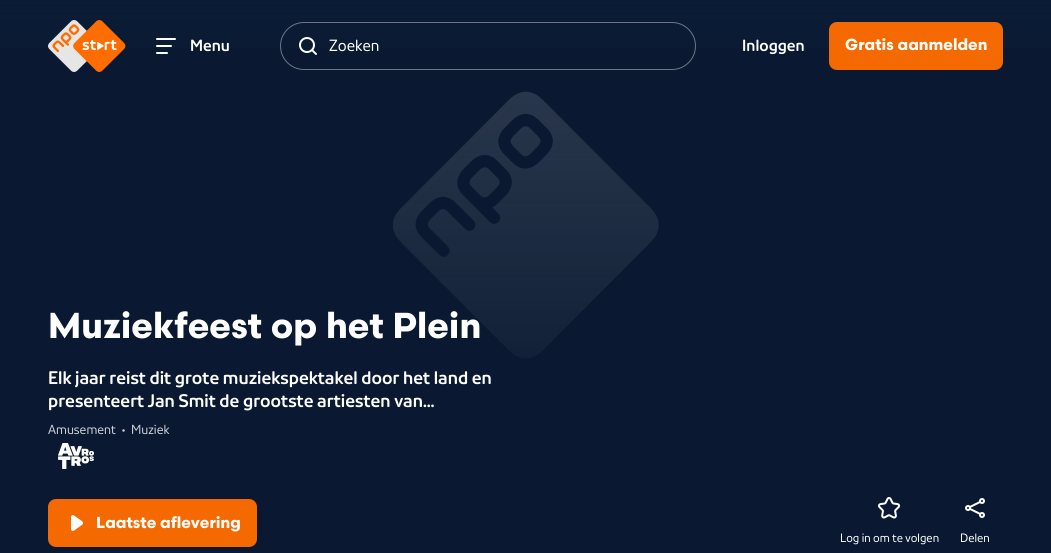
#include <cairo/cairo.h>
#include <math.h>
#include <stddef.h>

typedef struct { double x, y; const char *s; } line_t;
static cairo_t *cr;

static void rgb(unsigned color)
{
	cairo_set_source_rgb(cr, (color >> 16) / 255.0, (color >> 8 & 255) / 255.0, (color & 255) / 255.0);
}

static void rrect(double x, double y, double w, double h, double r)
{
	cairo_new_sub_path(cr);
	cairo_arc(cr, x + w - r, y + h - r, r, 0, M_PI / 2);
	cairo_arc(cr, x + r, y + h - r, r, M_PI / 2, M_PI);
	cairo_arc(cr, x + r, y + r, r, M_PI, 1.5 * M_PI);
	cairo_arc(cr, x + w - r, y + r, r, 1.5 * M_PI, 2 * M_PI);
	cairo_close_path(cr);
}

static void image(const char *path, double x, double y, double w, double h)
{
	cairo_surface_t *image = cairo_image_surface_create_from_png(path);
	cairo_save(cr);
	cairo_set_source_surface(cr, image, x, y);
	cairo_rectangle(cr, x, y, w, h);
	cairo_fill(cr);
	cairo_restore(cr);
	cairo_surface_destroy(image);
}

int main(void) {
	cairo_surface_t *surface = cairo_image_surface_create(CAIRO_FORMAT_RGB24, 1051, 553);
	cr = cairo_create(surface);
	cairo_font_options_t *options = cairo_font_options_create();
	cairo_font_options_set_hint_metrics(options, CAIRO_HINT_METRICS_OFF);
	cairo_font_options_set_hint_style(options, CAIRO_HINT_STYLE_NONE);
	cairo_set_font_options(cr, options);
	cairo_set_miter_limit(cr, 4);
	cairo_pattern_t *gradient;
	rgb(0x0a1931);
	cairo_paint(cr);
	gradient = cairo_pattern_create_linear(526, 92, 526, 0);
	cairo_pattern_add_color_stop_rgba(gradient, 0, 0.043, 0.11, 0.212, 0);
	cairo_pattern_add_color_stop_rgba(gradient, 1, 0.043, 0.11, 0.212, 1);
	cairo_set_source(cr, gradient);
	cairo_pattern_destroy(gradient);
	cairo_rectangle(cr, 0, 0, 1051, 49);
	cairo_fill(cr);
	image("img/1.png", 48, 20, 78, 52);
	image("img/2.png", 156, 38, 20, 16);
	rrect(280.5, 22.5, 415, 47, 23.5);
	cairo_set_source_rgba(cr, 1, 1, 1, 0.4);
	cairo_set_line_width(cr, 1);
	cairo_stroke(cr);
	image("img/3.png", 299, 37, 18, 18);
	rgb(0xf56a00);
	rrect(829, 22, 174, 48, 8);
	cairo_fill(cr);
	image("img/4.png", 393, 91, 266, 268);
	gradient = cairo_pattern_create_linear(526, 0, 526, 450);
	cairo_pattern_add_color_stop_rgba(gradient, 0, 0.039, 0.098, 0.192, 0);
	cairo_pattern_add_color_stop_rgba(gradient, 1, 0.039, 0.098, 0.192, 1);
	cairo_set_source(cr, gradient);
	cairo_pattern_destroy(gradient);
	cairo_rectangle(cr, 393, 92, 266, 267);
	cairo_fill(cr);
	image("img/5.png", 58, 443, 36, 26);
	rgb(0xf56a00);
	rrect(48, 499, 209, 48, 8);
	cairo_fill(cr);
	image("img/6.png", 71, 515, 12, 16);
	image("img/7.png", 878, 497, 23, 22);
	image("img/8.png", 965, 498, 20, 20);
	cairo_select_font_face(cr, "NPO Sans", CAIRO_FONT_SLANT_NORMAL, CAIRO_FONT_WEIGHT_BOLD);
	cairo_set_font_size(cr, 16);
	rgb(0xffffff);
	cairo_move_to(cr, 190, 51);
	cairo_show_text(cr, "Menu");
	cairo_select_font_face(cr, "NPO Sans", CAIRO_FONT_SLANT_NORMAL, CAIRO_FONT_WEIGHT_NORMAL);
	cairo_move_to(cr, 329, 51);
	cairo_show_text(cr, "Zoeken");
	cairo_select_font_face(cr, "NPO Sans", CAIRO_FONT_SLANT_NORMAL, CAIRO_FONT_WEIGHT_BOLD);
	cairo_move_to(cr, 742, 51);
	cairo_show_text(cr, "Inloggen");
	cairo_select_font_face(cr, "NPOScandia", CAIRO_FONT_SLANT_NORMAL, CAIRO_FONT_WEIGHT_BOLD);
	cairo_move_to(cr, 845, 50);
	cairo_show_text(cr, "Gratis aanmelden");
	cairo_set_font_size(cr, 36);
	cairo_move_to(cr, 48, 338);
	cairo_show_text(cr, "Muziekfeest op het Plein");
	cairo_select_font_face(cr, "NPO Sans", CAIRO_FONT_SLANT_NORMAL, CAIRO_FONT_WEIGHT_BOLD);
	cairo_set_font_size(cr, 18);
	cairo_move_to(cr, 48, 384);
	cairo_show_text(cr, "Elk jaar reist dit grote muziekspektakel door het land en");
	cairo_move_to(cr, 48, 407);
	cairo_show_text(cr, "presenteert Jan Smit de grootste artiesten van…");
	cairo_select_font_face(cr, "NPO Sans", CAIRO_FONT_SLANT_NORMAL, CAIRO_FONT_WEIGHT_NORMAL);
	cairo_set_font_size(cr, 13);
	rgb(0xced1d6);
	{
		static const line_t items[] = {
			{48, 434, "Amusement"},
			{122, 434, "•"},
			{131, 434, "Muziek"},
		};
		for (size_t i = 0; i < sizeof items / sizeof *items; i++) {
			cairo_move_to(cr, items[i].x, items[i].y);
			cairo_show_text(cr, items[i].s);
		}
	}
	cairo_select_font_face(cr, "NPOScandia", CAIRO_FONT_SLANT_NORMAL, CAIRO_FONT_WEIGHT_BOLD);
	cairo_set_font_size(cr, 16);
	rgb(0xffffff);
	cairo_move_to(cr, 96, 528);
	cairo_show_text(cr, "Laatste aflevering");
	cairo_select_font_face(cr, "NPO Sans", CAIRO_FONT_SLANT_NORMAL, CAIRO_FONT_WEIGHT_NORMAL);
	cairo_set_font_size(cr, 12);
	cairo_move_to(cr, 840, 542);
	cairo_show_text(cr, "Log in om te volgen");
	cairo_move_to(cr, 960, 542);
	cairo_show_text(cr, "Delen");
	cairo_surface_write_to_png(surface, "page.png");
	cairo_font_options_destroy(options);
	cairo_destroy(cr);
	cairo_surface_destroy(surface);
	return 0;
}
